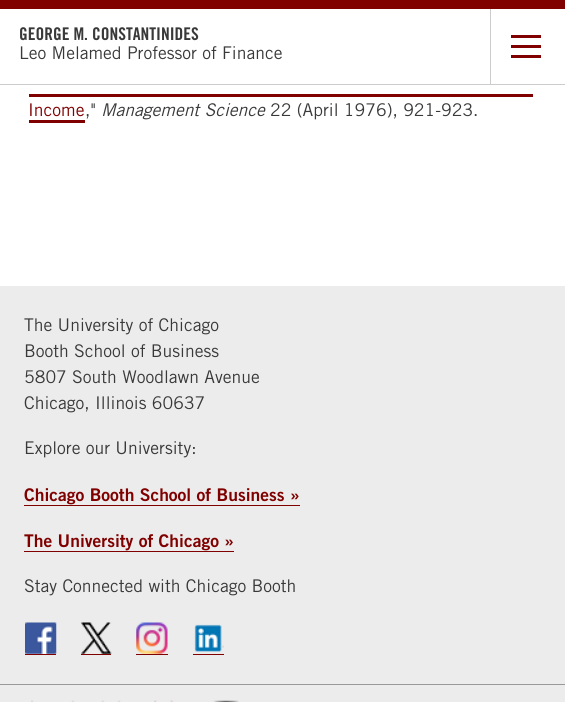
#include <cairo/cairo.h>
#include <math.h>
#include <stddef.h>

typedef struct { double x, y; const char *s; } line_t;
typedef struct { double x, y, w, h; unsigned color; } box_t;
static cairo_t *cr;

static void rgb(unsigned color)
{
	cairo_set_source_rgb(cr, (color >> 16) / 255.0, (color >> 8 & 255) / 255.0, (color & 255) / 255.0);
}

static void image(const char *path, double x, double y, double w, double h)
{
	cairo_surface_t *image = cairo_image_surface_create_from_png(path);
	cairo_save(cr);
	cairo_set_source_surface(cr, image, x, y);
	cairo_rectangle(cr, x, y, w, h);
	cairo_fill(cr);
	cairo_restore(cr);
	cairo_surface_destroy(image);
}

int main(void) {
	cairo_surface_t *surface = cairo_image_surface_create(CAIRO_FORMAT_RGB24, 565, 702);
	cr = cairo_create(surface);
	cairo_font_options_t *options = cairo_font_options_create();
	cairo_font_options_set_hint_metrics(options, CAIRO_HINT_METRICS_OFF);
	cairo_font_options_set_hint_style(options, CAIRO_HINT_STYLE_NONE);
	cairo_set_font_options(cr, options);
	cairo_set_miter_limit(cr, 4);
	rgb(0xffffff);
	cairo_paint(cr);
	{
		static const box_t items[] = {
			{0, 84, 565, 1, 0xcccccc},
			{0, 0, 565, 9, 0x800000},
			{490, 9, 1, 75, 0xcccccc},
			{511, 35, 30, 3, 0x800000},
			{511, 45, 30, 3, 0x800000},
			{511, 55, 30, 3, 0x800000},
			{29, 94, 504, 3, 0x800000},
			{29, 120, 56, 3, 0x800000},
			{0, 286, 565, 398, 0xececec},
			{24, 505, 276, 1, 0x800000},
			{24, 551, 210, 1, 0x800000},
			{25, 654, 31, 1, 0x800000},
		};
		for (size_t i = 0; i < sizeof items / sizeof *items; i++) {
			rgb(items[i].color);
			cairo_rectangle(cr, items[i].x, items[i].y, items[i].w, items[i].h);
			cairo_fill(cr);
		}
	}
	image("img/1.png", 25, 622, 32, 32);
	cairo_rectangle(cr, 81, 654, 30, 1);
	cairo_fill(cr);
	image("img/2.png", 81, 622, 31, 32);
	cairo_rectangle(cr, 136, 654, 32, 1);
	cairo_fill(cr);
	image("img/3.png", 136, 622, 32, 32);
	cairo_rectangle(cr, 193, 654, 31, 1);
	cairo_fill(cr);
	image("img/4.png", 194, 624, 30, 28);
	rgb(0xececec);
	cairo_rectangle(cr, 0, 685, 565, 17);
	cairo_fill(cr);
	rgb(0x999999);
	cairo_rectangle(cr, 0, 684, 565, 1);
	cairo_fill(cr);
	image("img/5.png", 31, 700, 208, 2);
	cairo_select_font_face(cr, "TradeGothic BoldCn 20", CAIRO_FONT_SLANT_NORMAL, CAIRO_FONT_WEIGHT_BOLD);
	cairo_set_font_size(cr, 17.5);
	rgb(0x39393a);
	cairo_move_to(cr, 19, 40);
	cairo_show_text(cr, "GEORGE M. CONSTANTINIDES");
	cairo_select_font_face(cr, "Trade Gothic", CAIRO_FONT_SLANT_NORMAL, CAIRO_FONT_WEIGHT_NORMAL);
	cairo_move_to(cr, 19, 59);
	cairo_show_text(cr, "Leo Melamed Professor of Finance");
	rgb(0x800000);
	cairo_move_to(cr, 28, 116);
	cairo_show_text(cr, "Income");
	rgb(0x39393a);
	cairo_move_to(cr, 85, 116);
	cairo_show_text(cr, ",\"");
	cairo_select_font_face(cr, "Trade Gothic", CAIRO_FONT_SLANT_ITALIC, CAIRO_FONT_WEIGHT_NORMAL);
	cairo_move_to(cr, 101, 116);
	cairo_show_text(cr, "Management Science");
	cairo_select_font_face(cr, "Trade Gothic", CAIRO_FONT_SLANT_NORMAL, CAIRO_FONT_WEIGHT_NORMAL);
	{
		static const line_t items[] = {
			{270, 116, "22 (April 1976), 921-923."},
			{24, 331, "The University of Chicago"},
			{24, 357, "Booth School of Business"},
			{24, 383, "5807 South Woodlawn Avenue"},
			{24, 409, "Chicago, Illinois 60637"},
			{24, 454, "Explore our University:"},
		};
		for (size_t i = 0; i < sizeof items / sizeof *items; i++) {
			cairo_move_to(cr, items[i].x, items[i].y);
			cairo_show_text(cr, items[i].s);
		}
	}
	cairo_select_font_face(cr, "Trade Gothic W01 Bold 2", CAIRO_FONT_SLANT_NORMAL, CAIRO_FONT_WEIGHT_BOLD);
	rgb(0x800000);
	cairo_move_to(cr, 24, 501);
	cairo_show_text(cr, "Chicago Booth School of Business »");
	cairo_move_to(cr, 24, 547);
	cairo_show_text(cr, "The University of Chicago »");
	cairo_select_font_face(cr, "Trade Gothic", CAIRO_FONT_SLANT_NORMAL, CAIRO_FONT_WEIGHT_NORMAL);
	rgb(0x39393a);
	cairo_move_to(cr, 24, 592);
	cairo_show_text(cr, "Stay Connected with Chicago Booth");
	cairo_surface_write_to_png(surface, "page.png");
	cairo_font_options_destroy(options);
	cairo_destroy(cr);
	cairo_surface_destroy(surface);
	return 0;
}
